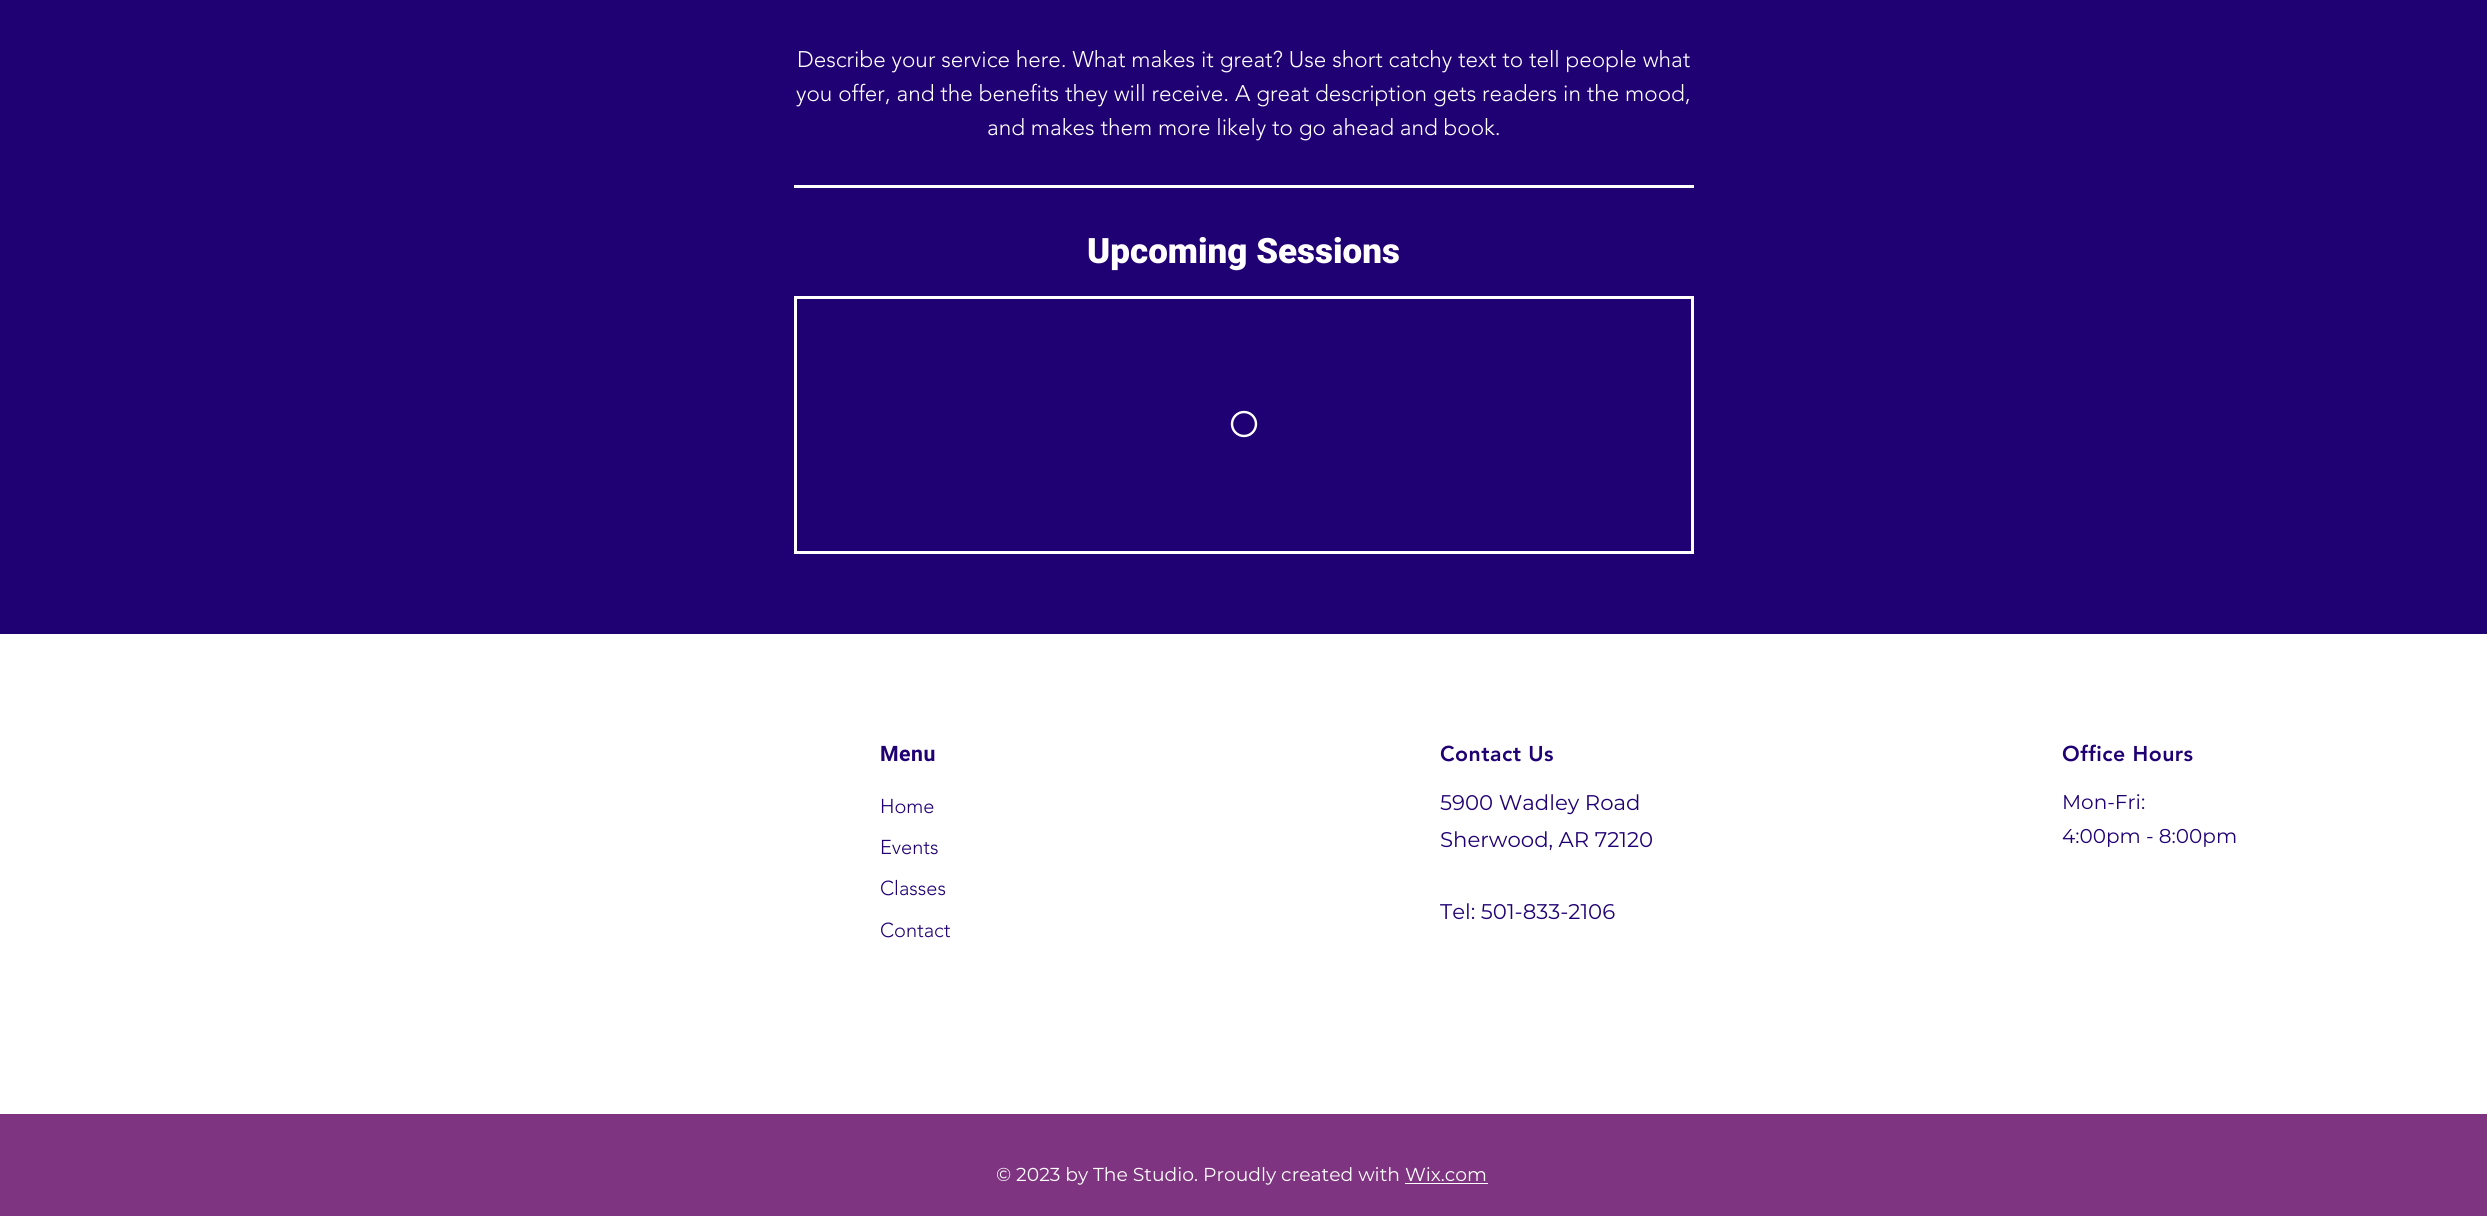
#include <cairo/cairo.h>
#include <math.h>
#include <stddef.h>

typedef struct { double x, y; const char *s; } line_t;
typedef struct { double x, y, w, h; unsigned color; } box_t;
static cairo_t *cr;

static void rgb(unsigned color)
{
	cairo_set_source_rgb(cr, (color >> 16) / 255.0, (color >> 8 & 255) / 255.0, (color & 255) / 255.0);
}

static void tracked(double x, double y, const char *s, double letter, double word)
{
	cairo_move_to(cr, x, y);
	while (*s) {
		char ch[5] = {0};
		int n = 0;
		do ch[n++] = *s++; while ((*s & 0xC0) == 0x80);
		cairo_show_text(cr, ch);
		cairo_rel_move_to(cr, letter + word * (*ch == ' '), 0);
	}
}

int main(void) {
	cairo_surface_t *surface = cairo_image_surface_create(CAIRO_FORMAT_RGB24, 2487, 1216);
	cr = cairo_create(surface);
	cairo_font_options_t *options = cairo_font_options_create();
	cairo_font_options_set_hint_metrics(options, CAIRO_HINT_METRICS_OFF);
	cairo_font_options_set_hint_style(options, CAIRO_HINT_STYLE_NONE);
	cairo_set_font_options(cr, options);
	cairo_set_miter_limit(cr, 4);
	rgb(0x200174);
	cairo_paint(cr);
	rgb(0xffffff);
	cairo_rectangle(cr, 794, 185, 900, 3);
	cairo_fill(cr);
	cairo_rectangle(cr, 795.5, 297.5, 897, 255);
	cairo_set_line_width(cr, 3);
	cairo_stroke(cr);
	cairo_arc(cr, 1244, 424, 12, 0, 2 * M_PI);
	cairo_set_line_width(cr, 2.4);
	cairo_stroke(cr);
	{
		static const box_t items[] = {
			{0, 634, 2487, 480, 0xffffff},
			{0, 1114, 2487, 102, 0x7e3480},
			{1405, 1183, 83, 1, 0xffffff},
		};
		for (size_t i = 0; i < sizeof items / sizeof *items; i++) {
			rgb(items[i].color);
			cairo_rectangle(cr, items[i].x, items[i].y, items[i].w, items[i].h);
			cairo_fill(cr);
		}
	}
	cairo_select_font_face(cr, "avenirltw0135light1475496 Light", CAIRO_FONT_SLANT_NORMAL, CAIRO_FONT_WEIGHT_NORMAL);
	cairo_set_font_size(cr, 22.5);
	{
		static const line_t items[] = {
			{797, 67, "Describe your service here. What makes it great? Use short catchy text to tell people what"},
			{796, 101, "you offer, and the benefits they will receive. A great description gets readers in the mood,"},
			{987, 135, "and makes them more likely to go ahead and book."},
		};
		for (size_t i = 0; i < sizeof items / sizeof *items; i++) {
			cairo_move_to(cr, items[i].x, items[i].y);
			cairo_show_text(cr, items[i].s);
		}
	}
	cairo_select_font_face(cr, "Roboto Black", CAIRO_FONT_SLANT_NORMAL, CAIRO_FONT_WEIGHT_NORMAL);
	cairo_set_font_size(cr, 35);
	cairo_move_to(cr, 1087, 263);
	cairo_show_text(cr, "Upcoming Sessions");
	cairo_select_font_face(cr, "Roboto", CAIRO_FONT_SLANT_NORMAL, CAIRO_FONT_WEIGHT_BOLD);
	cairo_set_font_size(cr, 21.25);
	rgb(0x200174);
	tracked(880, 761, "Menu", 0.5, 0);
	cairo_select_font_face(cr, "avenirltw0135light1475496 Light", CAIRO_FONT_SLANT_NORMAL, CAIRO_FONT_WEIGHT_NORMAL);
	cairo_set_font_size(cr, 20);
	{
		static const line_t items[] = {
			{880, 813, "Home"},
			{880, 854, "Events"},
			{880, 895, "Classes"},
			{880, 937, "Contact"},
		};
		for (size_t i = 0; i < sizeof items / sizeof *items; i++) {
			cairo_move_to(cr, items[i].x, items[i].y);
			cairo_show_text(cr, items[i].s);
		}
	}
	cairo_select_font_face(cr, "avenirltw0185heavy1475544 Black", CAIRO_FONT_SLANT_NORMAL, CAIRO_FONT_WEIGHT_NORMAL);
	cairo_set_font_size(cr, 21.25);
	tracked(1440, 761, "Contact Us", 0.5, 0);
	cairo_select_font_face(cr, "Montserrat", CAIRO_FONT_SLANT_NORMAL, CAIRO_FONT_WEIGHT_NORMAL);
	{
		static const line_t items[] = {
			{1440, 810, "5900 Wadley Road"},
			{1440, 847, "Sherwood, AR 72120"},
			{1440, 919, "Tel: 501-833-2106"},
		};
		for (size_t i = 0; i < sizeof items / sizeof *items; i++) {
			cairo_move_to(cr, items[i].x, items[i].y);
			cairo_show_text(cr, items[i].s);
		}
	}
	cairo_select_font_face(cr, "avenirltw0185heavy1475544 Black", CAIRO_FONT_SLANT_NORMAL, CAIRO_FONT_WEIGHT_NORMAL);
	tracked(2062, 761, "Office Hours", 0.5, 0);
	cairo_select_font_face(cr, "Montserrat", CAIRO_FONT_SLANT_NORMAL, CAIRO_FONT_WEIGHT_NORMAL);
	cairo_set_font_size(cr, 20);
	cairo_move_to(cr, 2062, 809);
	cairo_show_text(cr, "Mon-Fri:");
	cairo_move_to(cr, 2062, 843);
	cairo_show_text(cr, "4:00pm - 8:00pm");
	cairo_set_font_size(cr, 18.75);
	rgb(0xffffff);
	cairo_move_to(cr, 996, 1181);
	cairo_show_text(cr, "© 2023 by The Studio. Proudly created with Wix.com");
	cairo_surface_write_to_png(surface, "page.png");
	cairo_font_options_destroy(options);
	cairo_destroy(cr);
	cairo_surface_destroy(surface);
	return 0;
}
